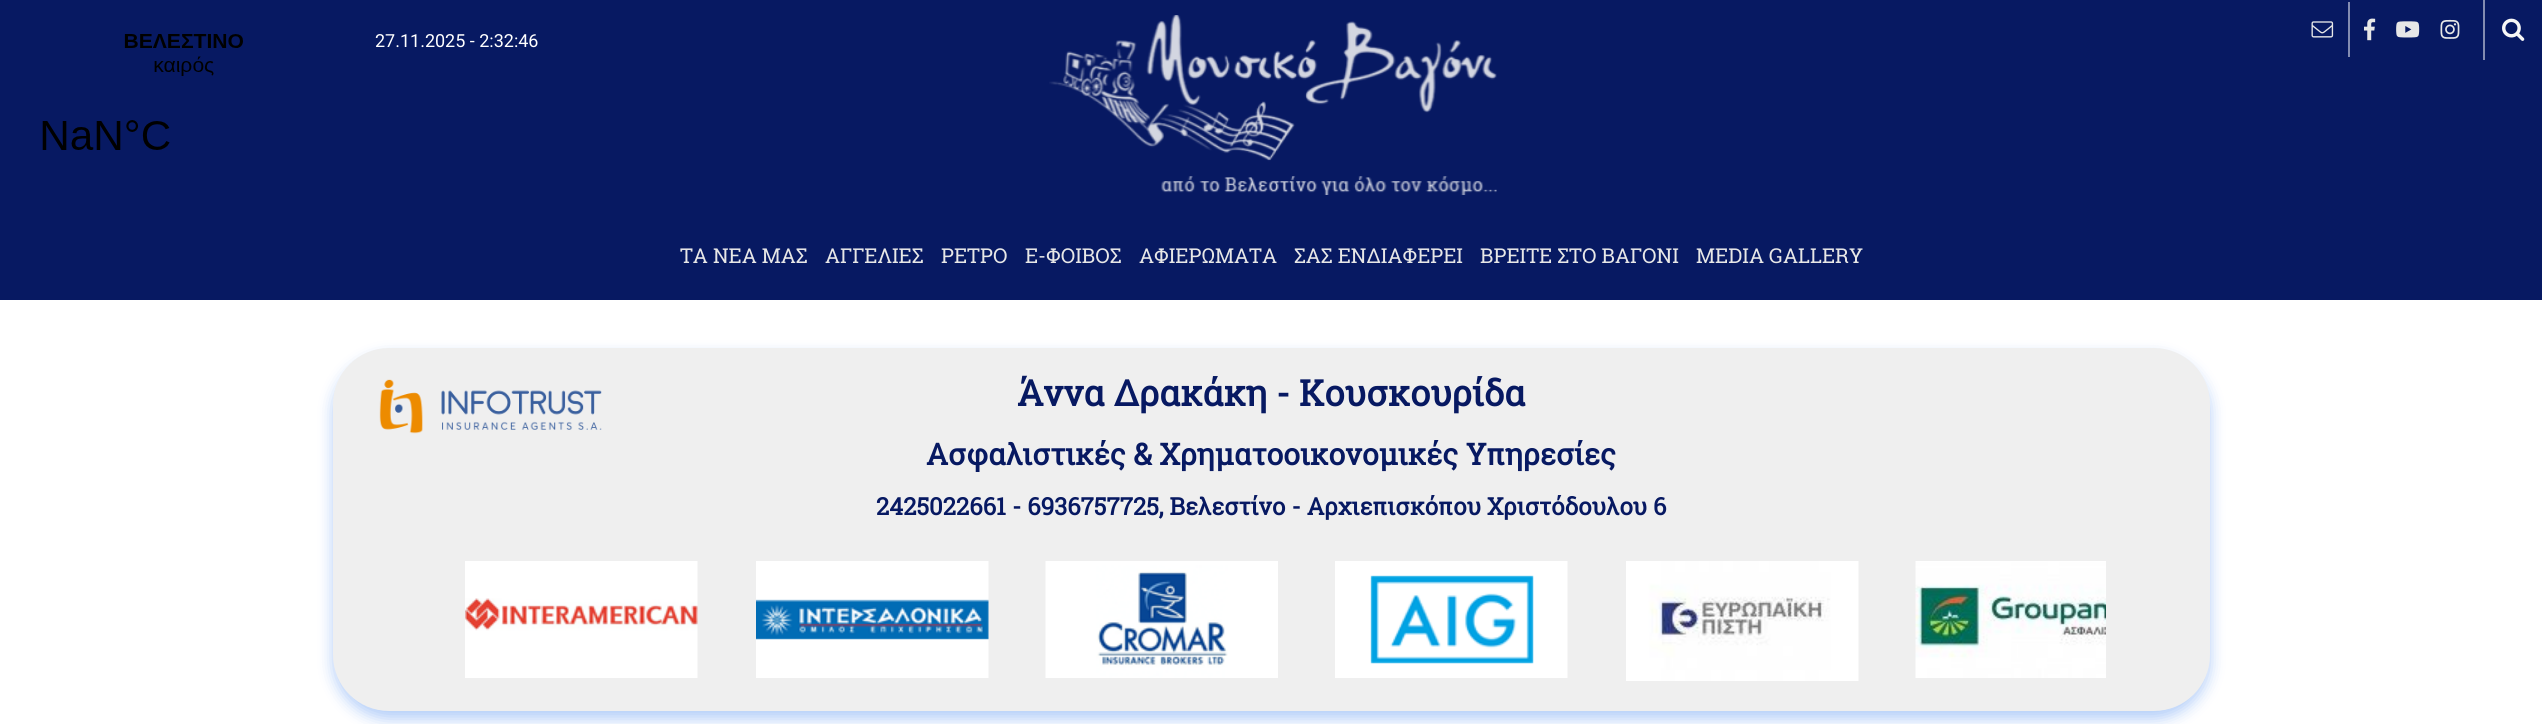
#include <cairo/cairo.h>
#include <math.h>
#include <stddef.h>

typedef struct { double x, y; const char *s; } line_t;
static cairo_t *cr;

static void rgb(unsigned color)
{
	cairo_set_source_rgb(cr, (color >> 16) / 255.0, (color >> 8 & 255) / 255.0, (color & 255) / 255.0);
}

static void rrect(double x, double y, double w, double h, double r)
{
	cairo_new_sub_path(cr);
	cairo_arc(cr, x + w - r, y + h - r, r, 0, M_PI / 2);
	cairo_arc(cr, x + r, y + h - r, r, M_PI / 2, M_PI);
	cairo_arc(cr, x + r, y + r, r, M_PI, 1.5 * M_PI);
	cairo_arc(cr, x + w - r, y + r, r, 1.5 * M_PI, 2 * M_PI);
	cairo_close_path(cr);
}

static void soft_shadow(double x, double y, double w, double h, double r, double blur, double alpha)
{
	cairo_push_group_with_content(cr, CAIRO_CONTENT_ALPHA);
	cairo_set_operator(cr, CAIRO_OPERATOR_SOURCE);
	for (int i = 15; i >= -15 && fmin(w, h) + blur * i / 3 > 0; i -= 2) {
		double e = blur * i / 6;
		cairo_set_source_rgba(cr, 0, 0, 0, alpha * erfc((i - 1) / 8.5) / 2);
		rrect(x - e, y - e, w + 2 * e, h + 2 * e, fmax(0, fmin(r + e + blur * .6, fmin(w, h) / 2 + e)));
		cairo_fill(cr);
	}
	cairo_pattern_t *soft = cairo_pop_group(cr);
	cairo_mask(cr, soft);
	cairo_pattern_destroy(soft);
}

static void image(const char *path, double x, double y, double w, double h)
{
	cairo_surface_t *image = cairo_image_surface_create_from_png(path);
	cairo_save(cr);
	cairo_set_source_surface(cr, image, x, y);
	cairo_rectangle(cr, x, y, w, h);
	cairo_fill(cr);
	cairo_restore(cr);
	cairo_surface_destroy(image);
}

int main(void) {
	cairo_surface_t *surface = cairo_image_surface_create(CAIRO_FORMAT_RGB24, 2542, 724);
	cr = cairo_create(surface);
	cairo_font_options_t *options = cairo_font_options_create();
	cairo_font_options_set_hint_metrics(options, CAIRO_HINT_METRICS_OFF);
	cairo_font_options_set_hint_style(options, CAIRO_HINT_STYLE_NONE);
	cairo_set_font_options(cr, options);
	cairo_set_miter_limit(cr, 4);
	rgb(0xffffff);
	cairo_paint(cr);
	rgb(0x071962);
	cairo_rectangle(cr, 0, 0, 2542, 300);
	cairo_fill(cr);
	image("img/1.png", 42, 34, 201, 116);
	image("img/2.png", 1049, 15, 448, 180);
	image("img/3.png", 2311, 21, 23, 17);
	rgb(0x838cb1);
	cairo_rectangle(cr, 2348, 2, 2, 55);
	cairo_fill(cr);
	image("img/4.png", 2364, 18, 12, 23);
	image("img/5.png", 2396, 21, 24, 17);
	image("img/6.png", 2440, 19, 20, 20);
	cairo_rectangle(cr, 2483, 0, 2, 60);
	cairo_fill(cr);
	image("img/7.png", 2502, 18, 23, 23);
	rgb(0x005ae9);
	soft_shadow(333, 356, 1877, 363, 56, 7.5, 0.3);
	rgb(0xefefef);
	rrect(333, 348, 1877, 363, 56);
	cairo_fill(cr);
	image("img/8.png", 379, 379, 223, 55);
	image("img/9.png", 465, 561, 233, 117);
	image("img/10.png", 756, 561, 233, 117);
	image("img/11.png", 1045, 561, 233, 117);
	image("img/12.png", 1335, 561, 233, 117);
	image("img/13.png", 1626, 561, 233, 120);
	image("img/14.png", 1915, 561, 191, 117);
	cairo_select_font_face(cr, "Roboto", CAIRO_FONT_SLANT_NORMAL, CAIRO_FONT_WEIGHT_NORMAL);
	cairo_set_font_size(cr, 18);
	rgb(0xffffff);
	cairo_move_to(cr, 375, 47);
	cairo_show_text(cr, "27.11.2025 - 2:32:46");
	cairo_select_font_face(cr, "Roboto Slab", CAIRO_FONT_SLANT_NORMAL, CAIRO_FONT_WEIGHT_NORMAL);
	cairo_set_font_size(cr, 20.5);
	rgb(0xe7e7e7);
	{
		static const line_t items[] = {
			{680, 263, "ΤΑ ΝΕΑ ΜΑΣ"},
			{825, 263, "AΓΓΕΛΙΕΣ"},
			{941, 263, "ΡΕΤΡΟ"},
			{1025, 263, "Ε-ΦΟΙΒΟΣ"},
			{1139, 263, "ΑΦΙΕΡΩΜΑΤΑ"},
			{1294, 263, "ΣΑΣ ΕΝΔΙΑΦΕΡΕΙ"},
			{1480, 263, "ΒΡΕΙΤΕ ΣΤΟ ΒΑΓΟΝΙ"},
			{1696, 263, "MEDIA GALLERY"},
		};
		for (size_t i = 0; i < sizeof items / sizeof *items; i++) {
			cairo_move_to(cr, items[i].x, items[i].y);
			cairo_show_text(cr, items[i].s);
		}
	}
	cairo_select_font_face(cr, "Roboto Slab", CAIRO_FONT_SLANT_NORMAL, CAIRO_FONT_WEIGHT_BOLD);
	cairo_set_font_size(cr, 36);
	rgb(0x071962);
	cairo_move_to(cr, 1017, 406);
	cairo_show_text(cr, "Άννα Δρακάκη - Κουσκουρίδα");
	cairo_set_font_size(cr, 30);
	cairo_move_to(cr, 926, 465);
	cairo_show_text(cr, "Aσφαλιστικές & Χρηματοοικονομικές Υπηρεσίες");
	cairo_set_font_size(cr, 24);
	cairo_move_to(cr, 876, 515);
	cairo_show_text(cr, "2425022661 - 6936757725, Βελεστίνο - Αρχιεπισκόπου Χριστόδουλου 6");
	cairo_surface_write_to_png(surface, "page.png");
	cairo_font_options_destroy(options);
	cairo_destroy(cr);
	cairo_surface_destroy(surface);
	return 0;
}
